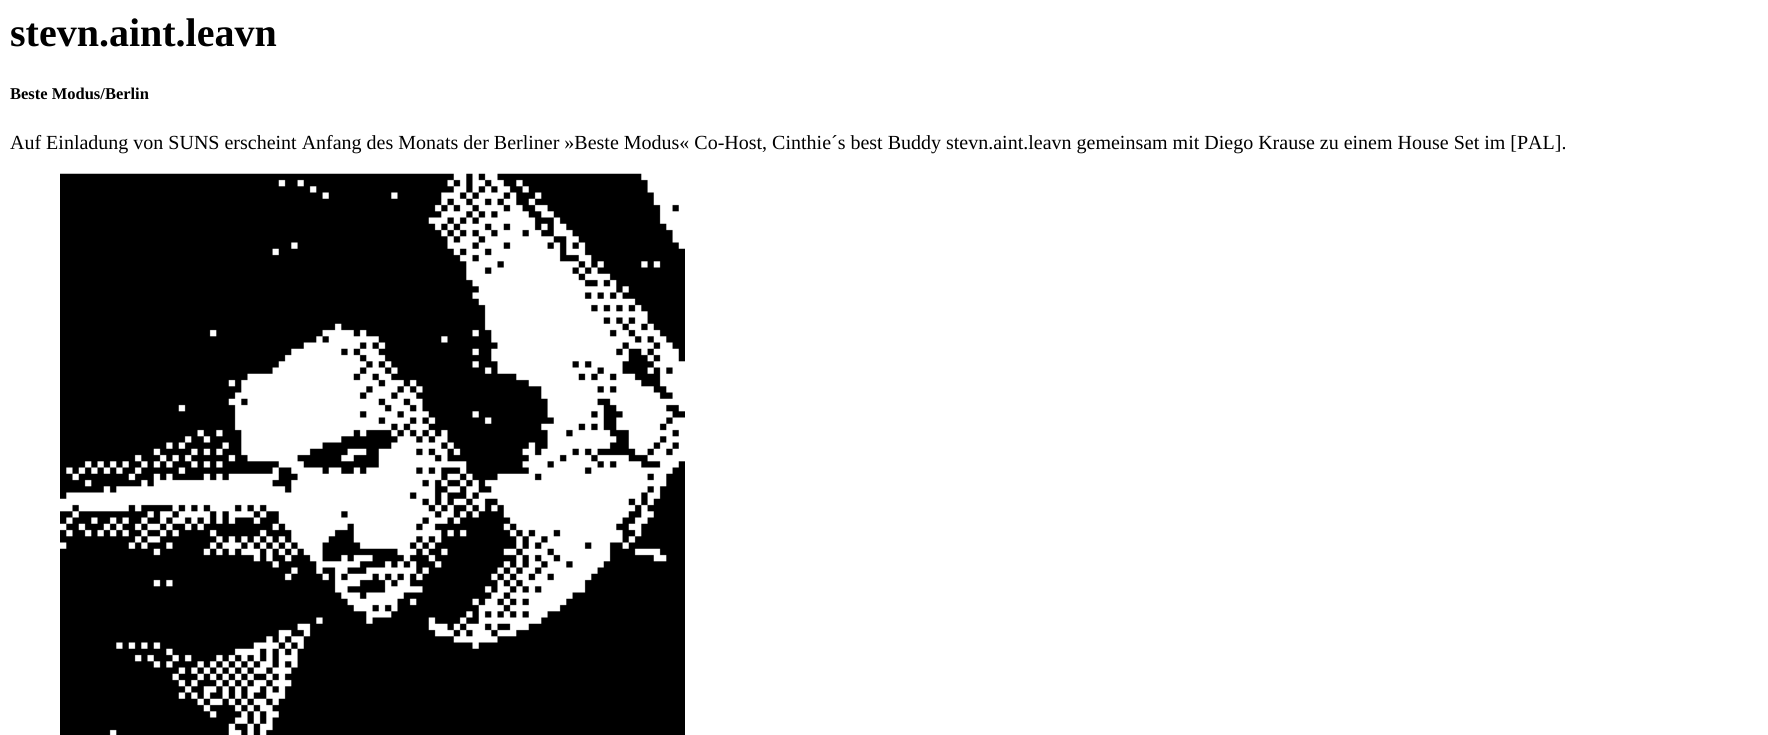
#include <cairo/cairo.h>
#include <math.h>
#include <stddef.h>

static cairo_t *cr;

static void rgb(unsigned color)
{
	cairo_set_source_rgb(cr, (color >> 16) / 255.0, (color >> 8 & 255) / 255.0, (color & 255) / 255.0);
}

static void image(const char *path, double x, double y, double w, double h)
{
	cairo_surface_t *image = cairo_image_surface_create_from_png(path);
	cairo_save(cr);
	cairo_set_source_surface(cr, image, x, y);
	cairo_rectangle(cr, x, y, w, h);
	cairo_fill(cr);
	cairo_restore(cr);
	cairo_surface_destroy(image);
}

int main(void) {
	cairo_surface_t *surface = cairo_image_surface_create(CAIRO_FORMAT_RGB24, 1768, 735);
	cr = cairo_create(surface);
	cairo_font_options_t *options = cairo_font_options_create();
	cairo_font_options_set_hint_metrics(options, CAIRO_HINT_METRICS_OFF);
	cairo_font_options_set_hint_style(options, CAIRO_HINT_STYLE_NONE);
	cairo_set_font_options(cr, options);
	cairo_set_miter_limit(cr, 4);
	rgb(0xffffff);
	cairo_paint(cr);
	image("img/1.png", 60, 173, 625, 562);
	cairo_select_font_face(cr, "Liberation Serif", CAIRO_FONT_SLANT_NORMAL, CAIRO_FONT_WEIGHT_BOLD);
	cairo_set_font_size(cr, 40);
	rgb(0x000000);
	cairo_move_to(cr, 10, 46);
	cairo_show_text(cr, "stevn.aint.leavn");
	cairo_set_font_size(cr, 16.5);
	cairo_move_to(cr, 10, 99);
	cairo_show_text(cr, "Beste Modus/Berlin");
	cairo_select_font_face(cr, "Liberation Serif", CAIRO_FONT_SLANT_NORMAL, CAIRO_FONT_WEIGHT_NORMAL);
	cairo_set_font_size(cr, 20);
	cairo_move_to(cr, 10, 149);
	cairo_show_text(cr, "Auf Einladung von SUNS erscheint Anfang des Monats der Berliner »Beste Modus« Co-Host, Cinthie´s best Buddy stevn.aint.leavn gemeinsam mit Diego Krause zu einem House Set im [PAL].");
	cairo_surface_write_to_png(surface, "page.png");
	cairo_font_options_destroy(options);
	cairo_destroy(cr);
	cairo_surface_destroy(surface);
	return 0;
}
